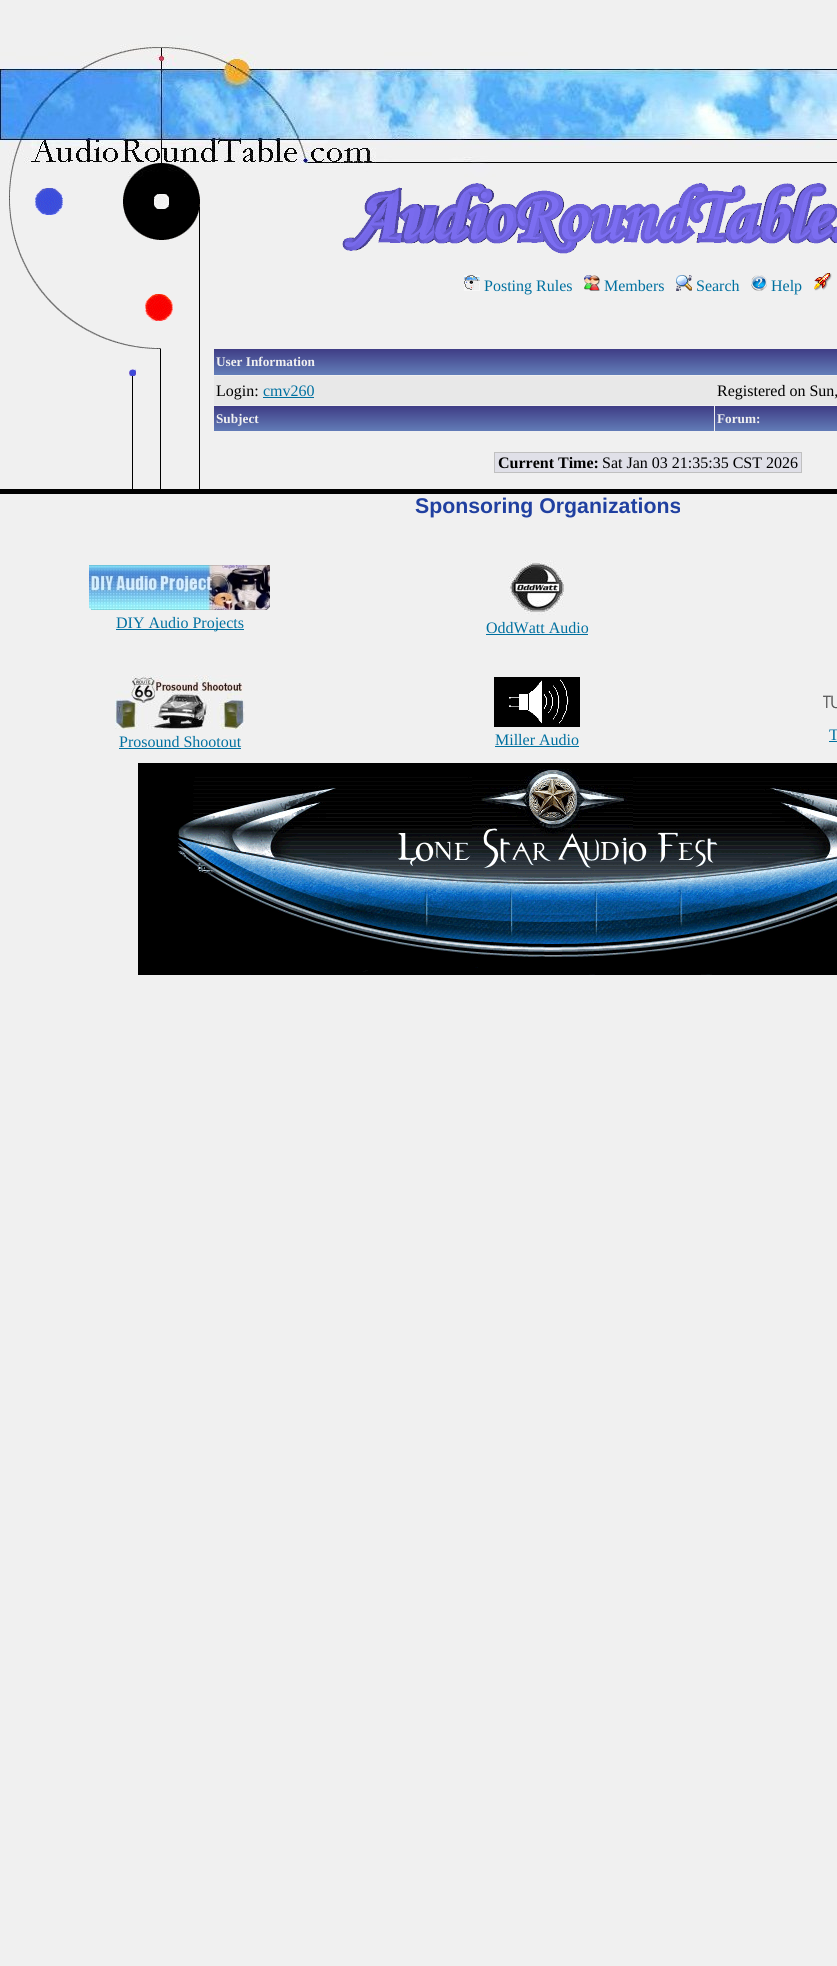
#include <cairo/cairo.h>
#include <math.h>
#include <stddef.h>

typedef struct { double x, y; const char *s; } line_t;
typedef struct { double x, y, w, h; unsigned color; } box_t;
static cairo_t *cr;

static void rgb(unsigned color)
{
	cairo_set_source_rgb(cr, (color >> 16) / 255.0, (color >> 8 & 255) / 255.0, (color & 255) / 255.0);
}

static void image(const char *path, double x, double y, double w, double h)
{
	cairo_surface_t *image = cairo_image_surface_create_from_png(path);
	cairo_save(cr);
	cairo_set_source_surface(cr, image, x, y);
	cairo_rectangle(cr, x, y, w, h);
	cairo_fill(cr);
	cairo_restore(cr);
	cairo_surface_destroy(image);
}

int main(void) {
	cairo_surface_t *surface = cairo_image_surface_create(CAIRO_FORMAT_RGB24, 837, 1966);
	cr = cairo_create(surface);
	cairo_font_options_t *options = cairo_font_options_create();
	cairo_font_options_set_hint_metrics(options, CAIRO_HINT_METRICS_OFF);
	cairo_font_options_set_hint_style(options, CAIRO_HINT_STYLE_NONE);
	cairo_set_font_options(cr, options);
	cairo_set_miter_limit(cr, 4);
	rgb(0xf0f0f0);
	cairo_paint(cr);
	image("img/1.png", 132, 376, 68, 113);
	image("img/2.png", 0, 36, 548, 141);
	image("img/3.png", 548, 67, 289, 96);
	image("img/4.png", 9, 177, 191, 199);
	image("img/5.png", 342, 183, 495, 71);
	image("img/6.png", 464, 275, 16, 16);
	image("img/7.png", 584, 275, 16, 16);
	image("img/8.png", 676, 275, 16, 16);
	image("img/9.png", 751, 275, 16, 16);
	image("img/10.png", 814, 273, 18, 18);
	image("img/11.png", 214, 349, 623, 26);
	rgb(0xe8e8e8);
	cairo_rectangle(cr, 214, 376, 623, 29);
	cairo_fill(cr);
	rgb(0x0070a0);
	cairo_rectangle(cr, 263, 397, 51, 1);
	cairo_fill(cr);
	image("img/12.png", 214, 406, 500, 25);
	image("img/13.png", 715, 406, 122, 25);
	{
		static const box_t items[] = {
			{495, 453, 306, 19, 0xe0e0e8},
			{494, 452, 308, 1, 0xc0c0c0},
			{494, 472, 104, 1, 0xc0c0c0},
			{494, 452, 1, 21, 0xc0c0c0},
			{801, 452, 1, 21, 0xc0c0c0},
			{598, 472, 204, 1, 0xc0c0c0},
			{0, 489, 837, 5, 0x000000},
		};
		for (size_t i = 0; i < sizeof items / sizeof *items; i++) {
			rgb(items[i].color);
			cairo_rectangle(cr, items[i].x, items[i].y, items[i].w, items[i].h);
			cairo_fill(cr);
		}
	}
	image("img/14.png", 89, 565, 181, 45);
	rgb(0x0070a0);
	cairo_rectangle(cr, 116, 629, 128, 1);
	cairo_fill(cr);
	image("img/15.png", 508, 560, 56, 55);
	cairo_rectangle(cr, 486, 634, 102, 1);
	cairo_fill(cr);
	image("img/16.png", 115, 675, 130, 54);
	cairo_rectangle(cr, 119, 748, 122, 1);
	cairo_fill(cr);
	image("img/17.png", 494, 677, 86, 50);
	cairo_rectangle(cr, 495, 746, 84, 1);
	cairo_fill(cr);
	image("img/18.png", 823, 695, 14, 14);
	cairo_rectangle(cr, 829, 741, 8, 1);
	cairo_fill(cr);
	image("img/19.png", 138, 763, 699, 212);
	cairo_select_font_face(cr, "Liberation Serif", CAIRO_FONT_SLANT_NORMAL, CAIRO_FONT_WEIGHT_NORMAL);
	cairo_set_font_size(cr, 16);
	{
		static const line_t items[] = {
			{484, 291, "Posting Rules"},
			{604, 291, "Members"},
			{696, 291, "Search"},
			{771, 291, "Help"},
		};
		for (size_t i = 0; i < sizeof items / sizeof *items; i++) {
			cairo_move_to(cr, items[i].x, items[i].y);
			cairo_show_text(cr, items[i].s);
		}
	}
	cairo_select_font_face(cr, "Liberation Serif", CAIRO_FONT_SLANT_NORMAL, CAIRO_FONT_WEIGHT_BOLD);
	cairo_set_font_size(cr, 13.25);
	rgb(0xf0f0f0);
	cairo_move_to(cr, 216, 366);
	cairo_show_text(cr, "User Information");
	cairo_select_font_face(cr, "Liberation Serif", CAIRO_FONT_SLANT_NORMAL, CAIRO_FONT_WEIGHT_NORMAL);
	cairo_set_font_size(cr, 16);
	rgb(0x000000);
	cairo_move_to(cr, 216, 396);
	cairo_show_text(cr, "Login:");
	rgb(0x0070a0);
	cairo_move_to(cr, 263, 396);
	cairo_show_text(cr, "cmv260");
	rgb(0x000000);
	cairo_move_to(cr, 717, 396);
	cairo_show_text(cr, "Registered on Sun,");
	cairo_select_font_face(cr, "Liberation Serif", CAIRO_FONT_SLANT_NORMAL, CAIRO_FONT_WEIGHT_BOLD);
	cairo_set_font_size(cr, 13.25);
	rgb(0xf0f0f0);
	cairo_move_to(cr, 216, 423);
	cairo_show_text(cr, "Subject");
	cairo_move_to(cr, 717, 423);
	cairo_show_text(cr, "Forum:");
	cairo_set_font_size(cr, 16);
	rgb(0x000000);
	cairo_move_to(cr, 498, 468);
	cairo_show_text(cr, "Current Time:");
	cairo_select_font_face(cr, "Liberation Serif", CAIRO_FONT_SLANT_NORMAL, CAIRO_FONT_WEIGHT_NORMAL);
	cairo_move_to(cr, 602, 468);
	cairo_show_text(cr, "Sat Jan 03 21:35:35 CST 2026");
	cairo_select_font_face(cr, "Liberation Sans", CAIRO_FONT_SLANT_NORMAL, CAIRO_FONT_WEIGHT_BOLD);
	cairo_set_font_size(cr, 21.3);
	rgb(0x2040a0);
	cairo_move_to(cr, 415, 513);
	cairo_show_text(cr, "Sponsoring Organizations");
	cairo_select_font_face(cr, "Liberation Serif", CAIRO_FONT_SLANT_NORMAL, CAIRO_FONT_WEIGHT_NORMAL);
	cairo_set_font_size(cr, 16);
	rgb(0x0070a0);
	{
		static const line_t items[] = {
			{116, 628, "DIY Audio Projects"},
			{486, 633, "OddWatt Audio"},
			{119, 747, "Prosound Shootout"},
			{495, 745, "Miller Audio"},
			{829, 740, "T"},
		};
		for (size_t i = 0; i < sizeof items / sizeof *items; i++) {
			cairo_move_to(cr, items[i].x, items[i].y);
			cairo_show_text(cr, items[i].s);
		}
	}
	cairo_surface_write_to_png(surface, "page.png");
	cairo_font_options_destroy(options);
	cairo_destroy(cr);
	cairo_surface_destroy(surface);
	return 0;
}
